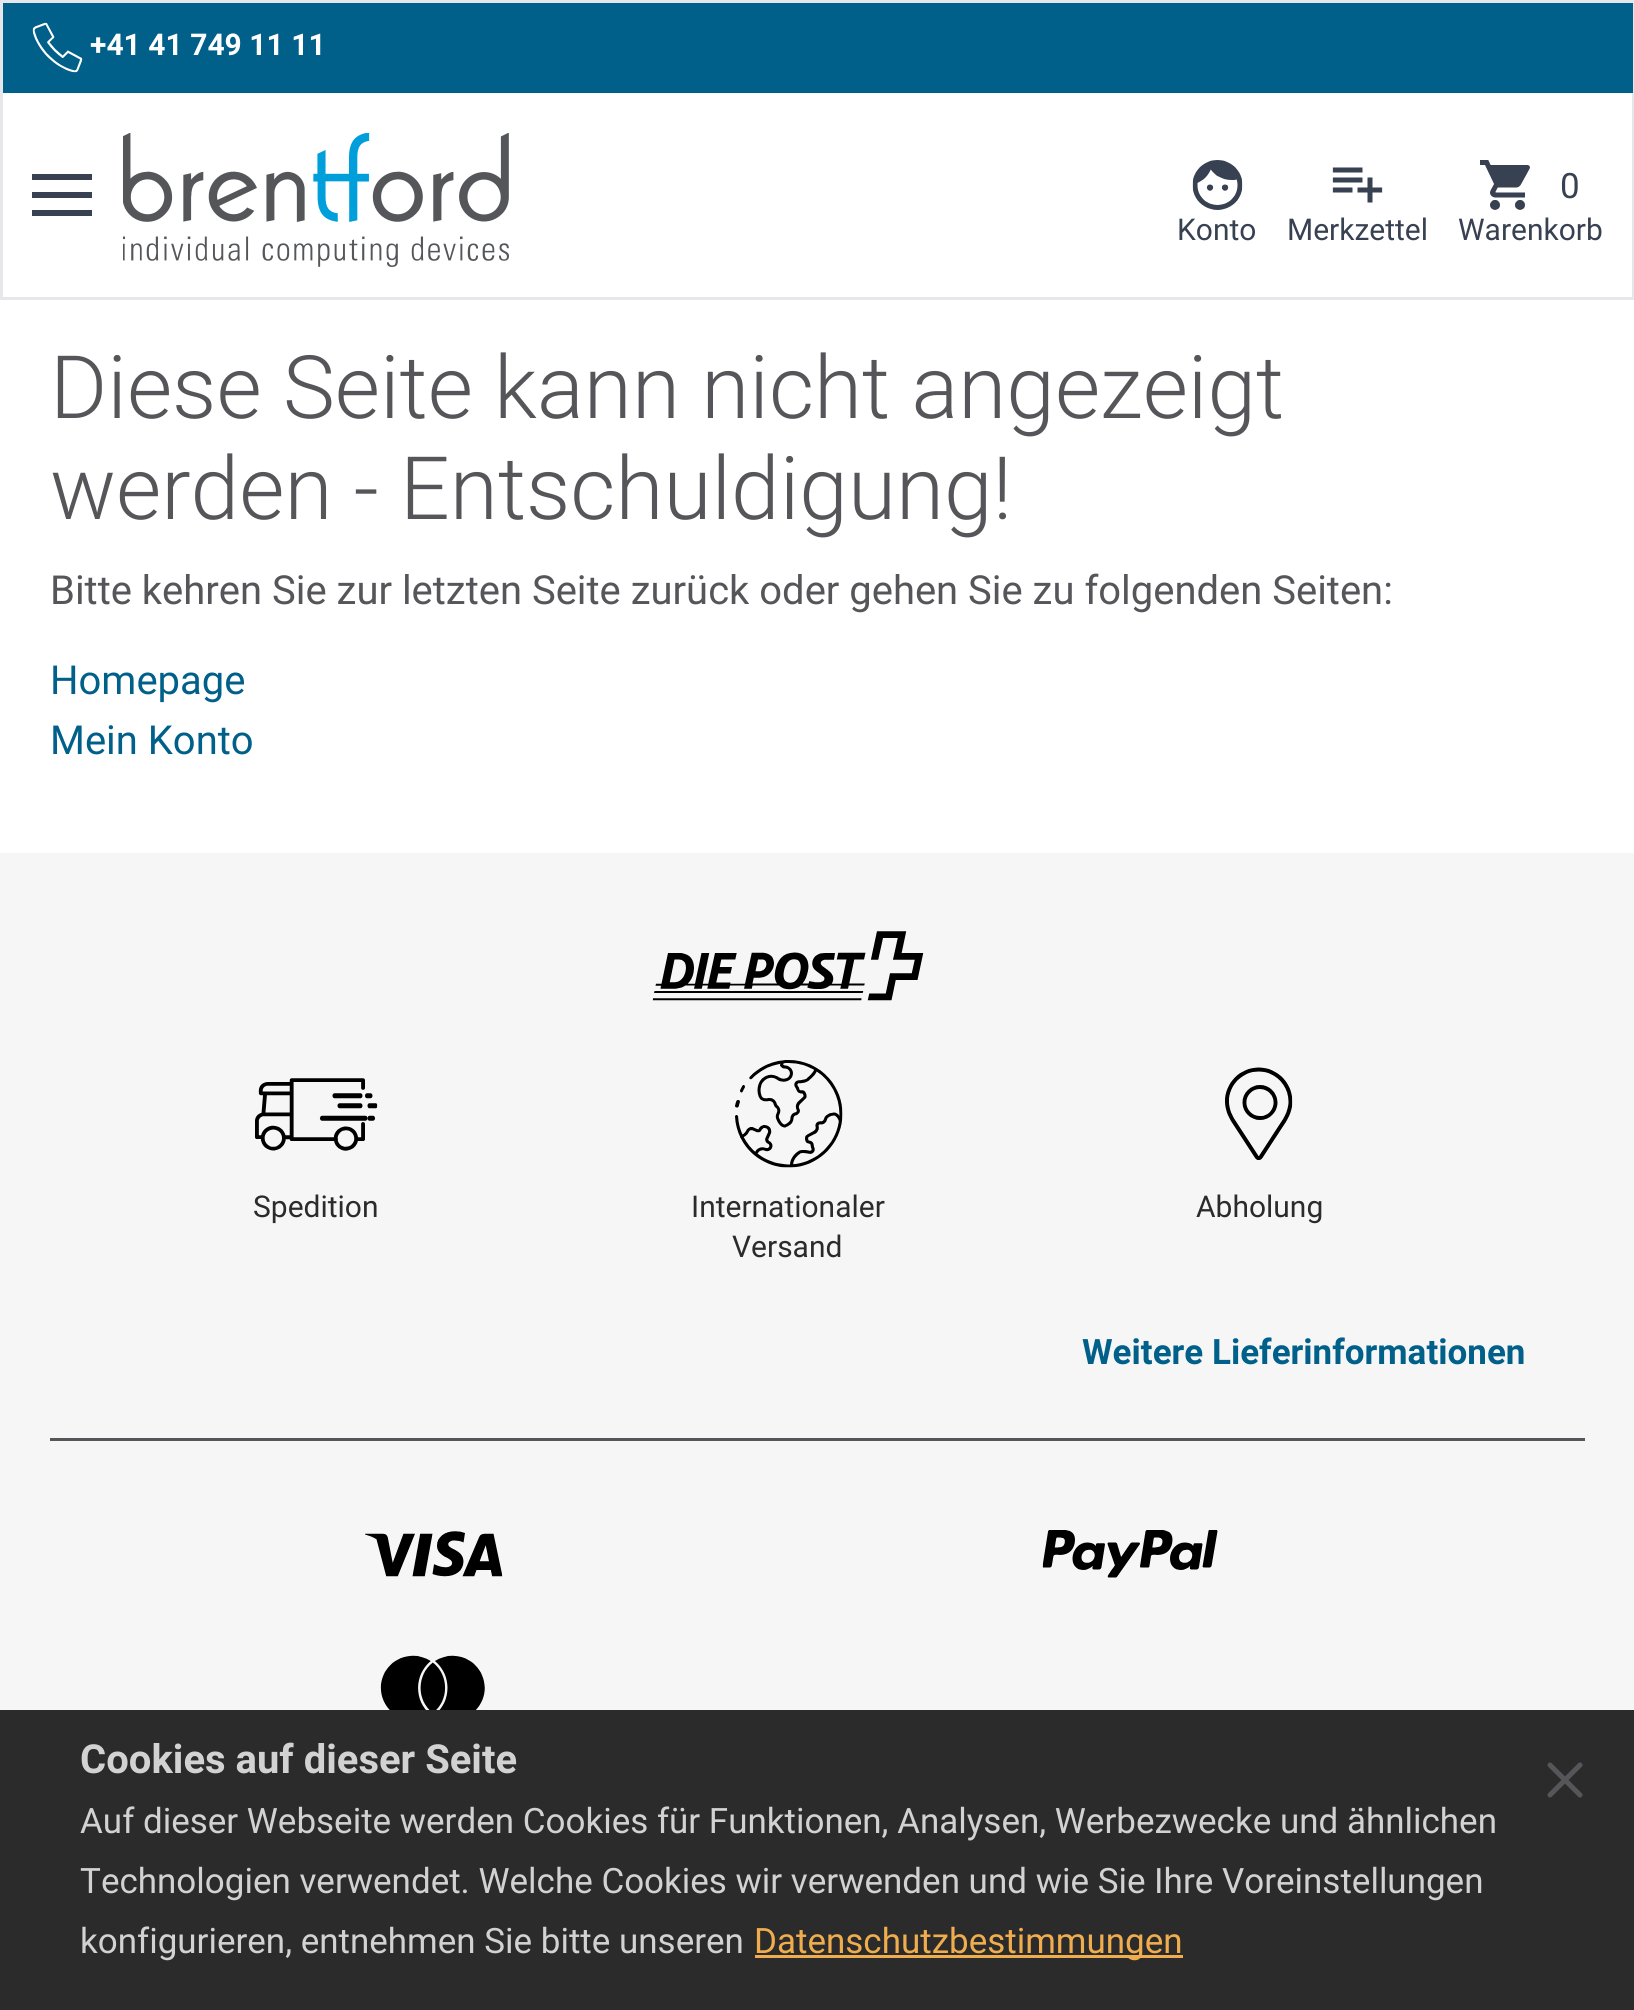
#include <cairo/cairo.h>
#include <math.h>
#include <stddef.h>

typedef struct { double x, y; const char *s; } line_t;
static cairo_t *cr;

static void rgb(unsigned color)
{
	cairo_set_source_rgb(cr, (color >> 16) / 255.0, (color >> 8 & 255) / 255.0, (color & 255) / 255.0);
}

static void image(const char *path, double x, double y, double w, double h)
{
	cairo_surface_t *image = cairo_image_surface_create_from_png(path);
	cairo_save(cr);
	cairo_set_source_surface(cr, image, x, y);
	cairo_rectangle(cr, x, y, w, h);
	cairo_fill(cr);
	cairo_restore(cr);
	cairo_surface_destroy(image);
}

int main(void) {
	cairo_surface_t *surface = cairo_image_surface_create(CAIRO_FORMAT_RGB24, 1634, 2010);
	cr = cairo_create(surface);
	cairo_font_options_t *options = cairo_font_options_create();
	cairo_font_options_set_hint_metrics(options, CAIRO_HINT_METRICS_OFF);
	cairo_font_options_set_hint_style(options, CAIRO_HINT_STYLE_NONE);
	cairo_set_font_options(cr, options);
	cairo_set_miter_limit(cr, 4);
	rgb(0xffffff);
	cairo_paint(cr);
	cairo_rectangle(cr, 1.5, 1.5, 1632, 297);
	rgb(0xe5e7eb);
	cairo_set_line_width(cr, 3);
	cairo_stroke(cr);
	rgb(0x00608a);
	cairo_rectangle(cr, 3, 3, 1630, 90);
	cairo_fill(cr);
	image("img/1.png", 32, 22, 51, 51);
	rgb(0x374151);
	cairo_new_path(cr);
	cairo_move_to(cr, 32, 174);
	cairo_line_to(cr, 92, 174);
	cairo_line_to(cr, 92, 180);
	cairo_line_to(cr, 32, 180);
	cairo_close_path(cr);
	cairo_move_to(cr, 32, 192);
	cairo_line_to(cr, 92, 192);
	cairo_line_to(cr, 92, 198);
	cairo_line_to(cr, 32, 198);
	cairo_close_path(cr);
	cairo_move_to(cr, 32, 210);
	cairo_line_to(cr, 92, 210);
	cairo_line_to(cr, 92, 216);
	cairo_line_to(cr, 32, 216);
	cairo_close_path(cr);
	cairo_fill(cr);
	image("img/2.png", 123, 133, 386, 134);
	image("img/3.png", 1192, 160, 51, 50);
	image("img/4.png", 1332, 167, 51, 36);
	image("img/5.png", 1480, 160, 50, 50);
	rgb(0xf6f6f6);
	cairo_rectangle(cr, 0, 853, 1634, 857);
	cairo_fill(cr);
	rgb(0x56565a);
	cairo_rectangle(cr, 50, 1438, 1535, 3);
	cairo_fill(cr);
	image("img/6.png", 652, 931, 272, 70);
	image("img/7.png", 255, 1078, 123, 73);
	image("img/8.png", 735, 1060, 108, 108);
	image("img/9.png", 1225, 1067, 68, 93);
	image("img/10.png", 365, 1531, 138, 46);
	image("img/11.png", 380, 1655, 105, 55);
	image("img/12.png", 1042, 1530, 176, 48);
	rgb(0x2b2b2b);
	cairo_rectangle(cr, 0, 1710, 1634, 300);
	cairo_fill(cr);
	rgb(0xf0ad4e);
	cairo_rectangle(cr, 755, 1955, 428, 3);
	cairo_fill(cr);
	cairo_new_path(cr);
	cairo_move_to(cr, 1550, 1795);
	cairo_line_to(cr, 1580, 1765);
	cairo_move_to(cr, 1550, 1765);
	cairo_line_to(cr, 1580, 1795);
	rgb(0x56565a);
	cairo_set_line_width(cr, 5);
	cairo_set_line_cap(cr, CAIRO_LINE_CAP_ROUND);
	cairo_set_line_join(cr, CAIRO_LINE_JOIN_ROUND);
	cairo_stroke(cr);
	cairo_select_font_face(cr, "Roboto", CAIRO_FONT_SLANT_NORMAL, CAIRO_FONT_WEIGHT_BOLD);
	cairo_set_font_size(cr, 30);
	rgb(0xffffff);
	cairo_move_to(cr, 90, 55);
	cairo_show_text(cr, "+41 41 749 11 11");
	cairo_select_font_face(cr, "Roboto", CAIRO_FONT_SLANT_NORMAL, CAIRO_FONT_WEIGHT_NORMAL);
	rgb(0x374151);
	cairo_move_to(cr, 1177, 240);
	cairo_show_text(cr, "Konto");
	cairo_move_to(cr, 1287, 240);
	cairo_show_text(cr, "Merkzettel");
	cairo_set_font_size(cr, 35);
	cairo_move_to(cr, 1560, 198);
	cairo_show_text(cr, "0");
	cairo_set_font_size(cr, 30);
	cairo_move_to(cr, 1458, 240);
	cairo_show_text(cr, "Warenkorb");
	cairo_select_font_face(cr, "Roboto Light", CAIRO_FONT_SLANT_NORMAL, CAIRO_FONT_WEIGHT_NORMAL);
	cairo_set_font_size(cr, 87.5);
	rgb(0x56565a);
	cairo_move_to(cr, 50, 418);
	cairo_show_text(cr, "Diese Seite kann nicht angezeigt");
	cairo_move_to(cr, 50, 519);
	cairo_show_text(cr, "werden - Entschuldigung!");
	cairo_select_font_face(cr, "Roboto", CAIRO_FONT_SLANT_NORMAL, CAIRO_FONT_WEIGHT_NORMAL);
	cairo_set_font_size(cr, 40);
	cairo_move_to(cr, 50, 604);
	cairo_show_text(cr, "Bitte kehren Sie zur letzten Seite zurück oder gehen Sie zu folgenden Seiten:");
	rgb(0x00608a);
	cairo_move_to(cr, 50, 694);
	cairo_show_text(cr, "Homepage");
	cairo_move_to(cr, 50, 754);
	cairo_show_text(cr, "Mein Konto");
	cairo_set_font_size(cr, 30);
	rgb(0x2b2b2b);
	{
		static const line_t items[] = {
			{253, 1217, "Spedition"},
			{691, 1217, "Internationaler"},
			{732, 1257, "Versand"},
			{1196, 1217, "Abholung"},
		};
		for (size_t i = 0; i < sizeof items / sizeof *items; i++) {
			cairo_move_to(cr, items[i].x, items[i].y);
			cairo_show_text(cr, items[i].s);
		}
	}
	cairo_select_font_face(cr, "Roboto", CAIRO_FONT_SLANT_NORMAL, CAIRO_FONT_WEIGHT_BOLD);
	cairo_set_font_size(cr, 35);
	rgb(0x00608a);
	cairo_move_to(cr, 1082, 1364);
	cairo_show_text(cr, "Weitere Lieferinformationen");
	cairo_set_font_size(cr, 40);
	rgb(0xd2d2d2);
	cairo_move_to(cr, 80, 1773);
	cairo_show_text(cr, "Cookies auf dieser Seite");
	cairo_select_font_face(cr, "Roboto", CAIRO_FONT_SLANT_NORMAL, CAIRO_FONT_WEIGHT_NORMAL);
	cairo_set_font_size(cr, 35);
	{
		static const line_t items[] = {
			{80, 1833, "Auf dieser Webseite werden Cookies für Funktionen, Analysen, Werbezwecke und ähnlichen"},
			{80, 1893, "Technologien verwendet. Welche Cookies wir verwenden und wie Sie Ihre Voreinstellungen"},
			{80, 1953, "konfigurieren, entnehmen Sie bitte unseren"},
		};
		for (size_t i = 0; i < sizeof items / sizeof *items; i++) {
			cairo_move_to(cr, items[i].x, items[i].y);
			cairo_show_text(cr, items[i].s);
		}
	}
	rgb(0xf0ad4e);
	cairo_move_to(cr, 754, 1953);
	cairo_show_text(cr, "Datenschutzbestimmungen");
	cairo_surface_write_to_png(surface, "page.png");
	cairo_font_options_destroy(options);
	cairo_destroy(cr);
	cairo_surface_destroy(surface);
	return 0;
}
